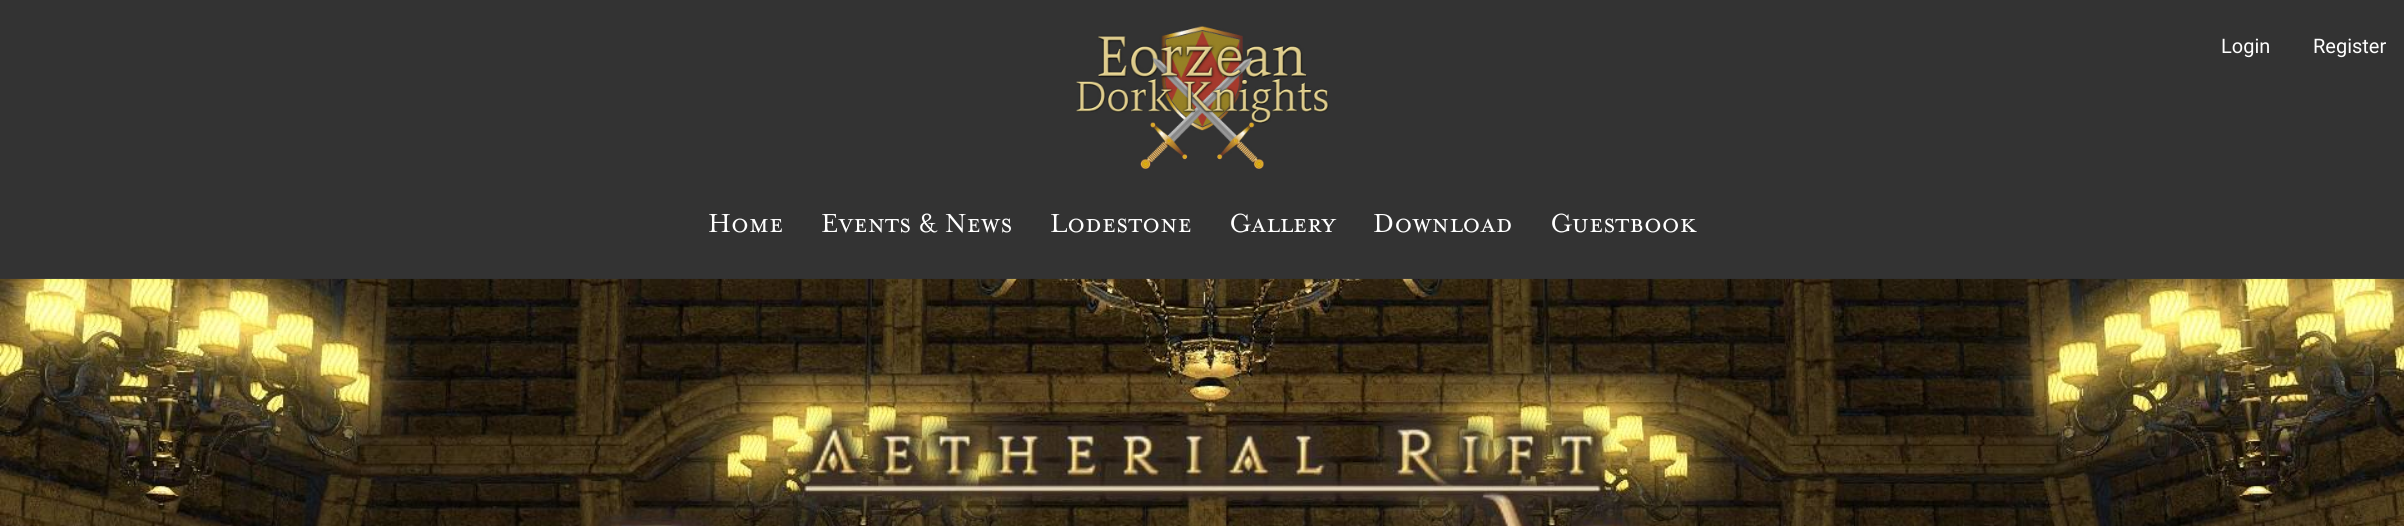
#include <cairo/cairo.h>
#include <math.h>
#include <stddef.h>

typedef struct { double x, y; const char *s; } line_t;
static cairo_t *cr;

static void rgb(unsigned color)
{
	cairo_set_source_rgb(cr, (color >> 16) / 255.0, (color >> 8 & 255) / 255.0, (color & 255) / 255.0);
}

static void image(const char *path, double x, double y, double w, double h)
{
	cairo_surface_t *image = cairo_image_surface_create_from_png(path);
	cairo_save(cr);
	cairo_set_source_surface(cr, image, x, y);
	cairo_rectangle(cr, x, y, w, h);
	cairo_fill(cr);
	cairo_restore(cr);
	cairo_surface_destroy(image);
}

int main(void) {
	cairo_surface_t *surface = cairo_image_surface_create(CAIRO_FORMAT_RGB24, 2404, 526);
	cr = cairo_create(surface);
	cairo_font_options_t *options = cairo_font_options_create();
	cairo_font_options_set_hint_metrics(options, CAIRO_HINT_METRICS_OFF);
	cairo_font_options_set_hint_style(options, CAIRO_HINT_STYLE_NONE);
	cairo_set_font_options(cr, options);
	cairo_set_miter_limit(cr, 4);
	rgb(0x333333);
	cairo_paint(cr);
	image("img/1.png", 1076, 26, 253, 143);
	image("img/2.png", 0, 278, 2404, 248);
	cairo_select_font_face(cr, "Roboto", CAIRO_FONT_SLANT_NORMAL, CAIRO_FONT_WEIGHT_NORMAL);
	cairo_set_font_size(cr, 20);
	rgb(0xffffff);
	cairo_move_to(cr, 2221, 53);
	cairo_show_text(cr, "Login");
	cairo_move_to(cr, 2313, 53);
	cairo_show_text(cr, "Register");
	cairo_select_font_face(cr, "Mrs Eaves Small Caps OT", CAIRO_FONT_SLANT_NORMAL, CAIRO_FONT_WEIGHT_NORMAL);
	cairo_set_font_size(cr, 30);
	{
		static const line_t items[] = {
			{708, 232, "Home"},
			{821, 232, "Events & News"},
			{1050, 232, "Lodestone"},
			{1229, 232, "Gallery"},
			{1373, 232, "Download"},
			{1550, 232, "Guestbook"},
		};
		for (size_t i = 0; i < sizeof items / sizeof *items; i++) {
			cairo_move_to(cr, items[i].x, items[i].y);
			cairo_show_text(cr, items[i].s);
		}
	}
	cairo_surface_write_to_png(surface, "page.png");
	cairo_font_options_destroy(options);
	cairo_destroy(cr);
	cairo_surface_destroy(surface);
	return 0;
}
